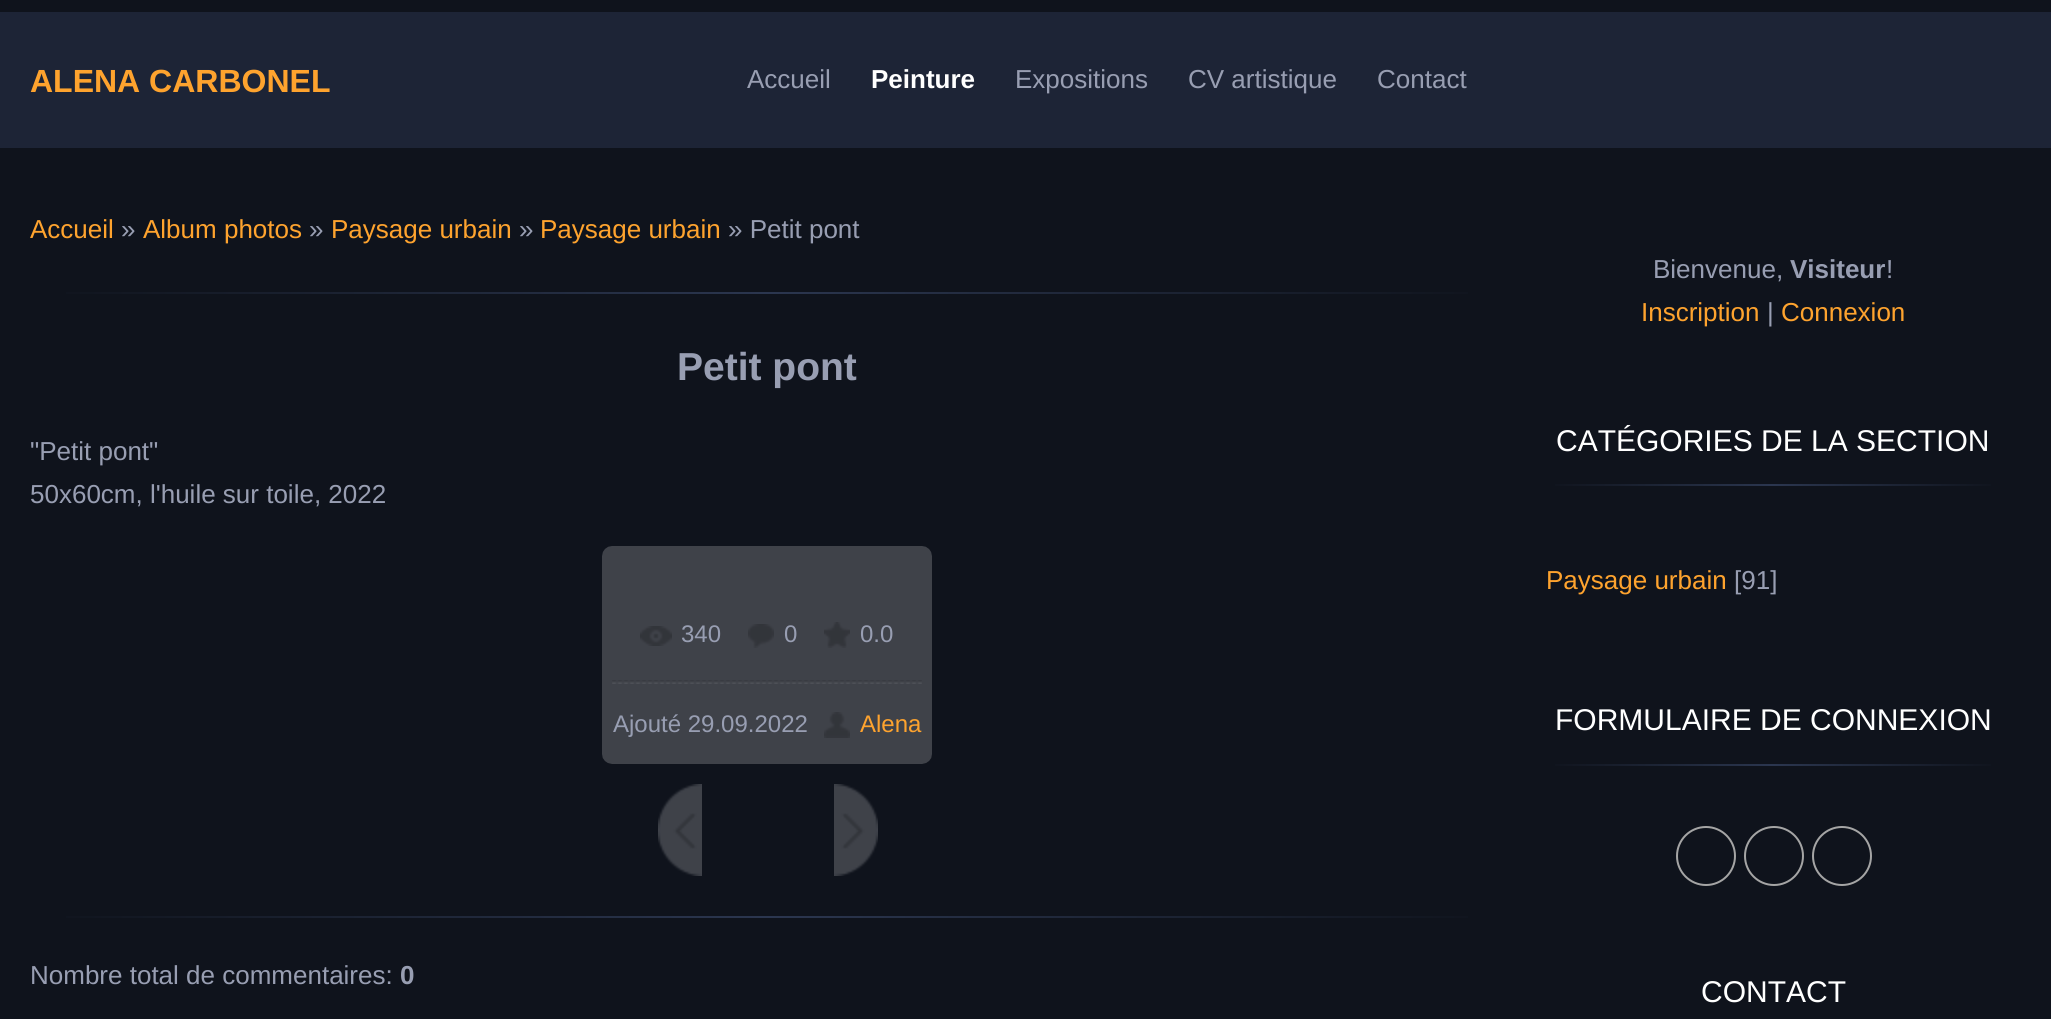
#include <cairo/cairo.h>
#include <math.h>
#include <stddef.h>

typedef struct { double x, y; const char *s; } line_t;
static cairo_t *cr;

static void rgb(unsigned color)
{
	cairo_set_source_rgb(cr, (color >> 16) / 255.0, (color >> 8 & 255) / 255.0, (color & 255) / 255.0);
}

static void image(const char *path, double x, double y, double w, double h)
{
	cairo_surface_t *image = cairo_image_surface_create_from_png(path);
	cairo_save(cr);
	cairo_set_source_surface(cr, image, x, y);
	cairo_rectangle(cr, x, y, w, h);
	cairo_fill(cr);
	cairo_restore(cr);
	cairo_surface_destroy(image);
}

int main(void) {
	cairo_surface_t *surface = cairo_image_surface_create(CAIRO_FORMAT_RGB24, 2051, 1019);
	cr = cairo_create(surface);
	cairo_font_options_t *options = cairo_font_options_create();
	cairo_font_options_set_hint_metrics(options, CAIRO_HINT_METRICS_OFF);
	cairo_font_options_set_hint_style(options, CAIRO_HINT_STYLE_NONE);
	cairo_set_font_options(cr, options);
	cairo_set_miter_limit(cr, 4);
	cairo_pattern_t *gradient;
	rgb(0x0f131c);
	cairo_paint(cr);
	rgb(0x1d2436);
	cairo_rectangle(cr, 0, 12, 2051, 136);
	cairo_fill(cr);
	gradient = cairo_pattern_create_linear(30, 293, 1504, 293);
	cairo_pattern_add_color_stop_rgba(gradient, 0, 0.059, 0.075, 0.11, 1);
	cairo_pattern_add_color_stop_rgba(gradient, 0.5, 0.169, 0.212, 0.31, 1);
	cairo_pattern_add_color_stop_rgba(gradient, 1, 0.059, 0.075, 0.11, 1);
	cairo_set_source(cr, gradient);
	cairo_pattern_destroy(gradient);
	cairo_rectangle(cr, 66, 292, 1402, 2);
	cairo_fill(cr);
	image("img/1.png", 602, 546, 330, 218);
	image("img/2.png", 640, 626, 32, 20);
	image("img/3.png", 748, 624, 26, 24);
	image("img/4.png", 824, 622, 26, 26);
	image("img/5.png", 612, 680, 310, 4);
	image("img/6.png", 824, 712, 26, 26);
	image("img/7.png", 658, 784, 44, 92);
	image("img/8.png", 834, 784, 44, 92);
	gradient = cairo_pattern_create_linear(30, 917, 1504, 917);
	cairo_pattern_add_color_stop_rgba(gradient, 0, 0.059, 0.075, 0.11, 1);
	cairo_pattern_add_color_stop_rgba(gradient, 0.5, 0.169, 0.212, 0.31, 1);
	cairo_pattern_add_color_stop_rgba(gradient, 1, 0.059, 0.075, 0.11, 1);
	cairo_set_source(cr, gradient);
	cairo_pattern_destroy(gradient);
	cairo_rectangle(cr, 66, 916, 1402, 2);
	cairo_fill(cr);
	gradient = cairo_pattern_create_linear(1544, 485, 2002, 485);
	cairo_pattern_add_color_stop_rgba(gradient, 0, 0.059, 0.075, 0.11, 1);
	cairo_pattern_add_color_stop_rgba(gradient, 0.5, 0.169, 0.212, 0.31, 1);
	cairo_pattern_add_color_stop_rgba(gradient, 1, 0.059, 0.075, 0.11, 1);
	cairo_set_source(cr, gradient);
	cairo_pattern_destroy(gradient);
	cairo_rectangle(cr, 1555, 484, 436, 2);
	cairo_fill(cr);
	gradient = cairo_pattern_create_linear(1544, 765, 2002, 765);
	cairo_pattern_add_color_stop_rgba(gradient, 0, 0.059, 0.075, 0.11, 1);
	cairo_pattern_add_color_stop_rgba(gradient, 0.5, 0.169, 0.212, 0.31, 1);
	cairo_pattern_add_color_stop_rgba(gradient, 1, 0.059, 0.075, 0.11, 1);
	cairo_set_source(cr, gradient);
	cairo_pattern_destroy(gradient);
	cairo_rectangle(cr, 1555, 764, 436, 2);
	cairo_fill(cr);
	cairo_arc(cr, 1706, 856, 29, 0, 2 * M_PI);
	rgb(0xa5a5a5);
	cairo_stroke(cr);
	cairo_arc(cr, 1774, 856, 29, 0, 2 * M_PI);
	cairo_stroke(cr);
	cairo_arc(cr, 1842, 856, 29, 0, 2 * M_PI);
	cairo_stroke(cr);
	cairo_select_font_face(cr, "Arimo", CAIRO_FONT_SLANT_NORMAL, CAIRO_FONT_WEIGHT_BOLD);
	cairo_set_font_size(cr, 32);
	rgb(0xfea32e);
	cairo_move_to(cr, 30, 92);
	cairo_show_text(cr, "ALENA CARBONEL");
	cairo_select_font_face(cr, "Arimo", CAIRO_FONT_SLANT_NORMAL, CAIRO_FONT_WEIGHT_NORMAL);
	cairo_set_font_size(cr, 26);
	rgb(0x989eb2);
	cairo_move_to(cr, 747, 88);
	cairo_show_text(cr, "Accueil");
	cairo_select_font_face(cr, "Arimo", CAIRO_FONT_SLANT_NORMAL, CAIRO_FONT_WEIGHT_BOLD);
	rgb(0xffffff);
	cairo_move_to(cr, 871, 88);
	cairo_show_text(cr, "Peinture");
	cairo_select_font_face(cr, "Arimo", CAIRO_FONT_SLANT_NORMAL, CAIRO_FONT_WEIGHT_NORMAL);
	rgb(0x989eb2);
	{
		static const line_t items[] = {
			{1015, 88, "Expositions"},
			{1188, 88, "CV artistique"},
			{1377, 88, "Contact"},
		};
		for (size_t i = 0; i < sizeof items / sizeof *items; i++) {
			cairo_move_to(cr, items[i].x, items[i].y);
			cairo_show_text(cr, items[i].s);
		}
	}
	rgb(0xfea32e);
	cairo_move_to(cr, 30, 238);
	cairo_show_text(cr, "Accueil");
	rgb(0x989eb2);
	cairo_move_to(cr, 121, 238);
	cairo_show_text(cr, "»");
	rgb(0xfea32e);
	cairo_move_to(cr, 143, 238);
	cairo_show_text(cr, "Album photos");
	rgb(0x989eb2);
	cairo_move_to(cr, 309, 238);
	cairo_show_text(cr, "»");
	rgb(0xfea32e);
	cairo_move_to(cr, 331, 238);
	cairo_show_text(cr, "Paysage urbain");
	rgb(0x989eb2);
	cairo_move_to(cr, 519, 238);
	cairo_show_text(cr, "»");
	rgb(0xfea32e);
	cairo_move_to(cr, 540, 238);
	cairo_show_text(cr, "Paysage urbain");
	rgb(0x989eb2);
	cairo_move_to(cr, 728, 238);
	cairo_show_text(cr, "» Petit pont");
	cairo_select_font_face(cr, "Arimo", CAIRO_FONT_SLANT_NORMAL, CAIRO_FONT_WEIGHT_BOLD);
	cairo_set_font_size(cr, 39);
	cairo_move_to(cr, 677, 380);
	cairo_show_text(cr, "Petit pont");
	cairo_select_font_face(cr, "Arimo", CAIRO_FONT_SLANT_NORMAL, CAIRO_FONT_WEIGHT_NORMAL);
	cairo_set_font_size(cr, 26);
	cairo_move_to(cr, 30, 460);
	cairo_show_text(cr, "\"Petit pont\"");
	cairo_move_to(cr, 30, 503);
	cairo_show_text(cr, "50x60cm, l'huile sur toile, 2022");
	cairo_select_font_face(cr, "Liberation Sans", CAIRO_FONT_SLANT_NORMAL, CAIRO_FONT_WEIGHT_NORMAL);
	cairo_set_font_size(cr, 24);
	{
		static const line_t items[] = {
			{681, 642, "340"},
			{784, 642, "0"},
			{860, 642, "0.0"},
			{613, 732, "Ajouté 29.09.2022"},
		};
		for (size_t i = 0; i < sizeof items / sizeof *items; i++) {
			cairo_move_to(cr, items[i].x, items[i].y);
			cairo_show_text(cr, items[i].s);
		}
	}
	cairo_select_font_face(cr, "Arimo", CAIRO_FONT_SLANT_NORMAL, CAIRO_FONT_WEIGHT_NORMAL);
	rgb(0xfea32e);
	cairo_move_to(cr, 860, 732);
	cairo_show_text(cr, "Alena");
	cairo_set_font_size(cr, 26);
	rgb(0x989eb2);
	cairo_move_to(cr, 30, 984);
	cairo_show_text(cr, "Nombre total de commentaires:");
	cairo_select_font_face(cr, "Arimo", CAIRO_FONT_SLANT_NORMAL, CAIRO_FONT_WEIGHT_BOLD);
	cairo_move_to(cr, 400, 984);
	cairo_show_text(cr, "0");
	cairo_select_font_face(cr, "Arimo", CAIRO_FONT_SLANT_NORMAL, CAIRO_FONT_WEIGHT_NORMAL);
	cairo_move_to(cr, 1653, 278);
	cairo_show_text(cr, "Bienvenue,");
	cairo_select_font_face(cr, "Arimo", CAIRO_FONT_SLANT_NORMAL, CAIRO_FONT_WEIGHT_BOLD);
	cairo_move_to(cr, 1790, 278);
	cairo_show_text(cr, "Visiteur");
	cairo_select_font_face(cr, "Arimo", CAIRO_FONT_SLANT_NORMAL, CAIRO_FONT_WEIGHT_NORMAL);
	cairo_move_to(cr, 1886, 278);
	cairo_show_text(cr, "!");
	rgb(0xfea32e);
	cairo_move_to(cr, 1641, 321);
	cairo_show_text(cr, "Inscription");
	rgb(0x989eb2);
	cairo_move_to(cr, 1767, 321);
	cairo_show_text(cr, "|");
	rgb(0xfea32e);
	cairo_move_to(cr, 1781, 321);
	cairo_show_text(cr, "Connexion");
	cairo_set_font_size(cr, 30);
	rgb(0xffffff);
	cairo_move_to(cr, 1556, 451);
	cairo_show_text(cr, "CATÉGORIES DE LA SECTION");
	cairo_set_font_size(cr, 26);
	rgb(0xfea32e);
	cairo_move_to(cr, 1546, 589);
	cairo_show_text(cr, "Paysage urbain");
	rgb(0x989eb2);
	cairo_move_to(cr, 1734, 589);
	cairo_show_text(cr, "[91]");
	cairo_set_font_size(cr, 30);
	rgb(0xffffff);
	cairo_move_to(cr, 1555, 730);
	cairo_show_text(cr, "FORMULAIRE DE CONNEXION");
	cairo_move_to(cr, 1701, 1002);
	cairo_show_text(cr, "CONTACT");
	cairo_surface_write_to_png(surface, "page.png");
	cairo_font_options_destroy(options);
	cairo_destroy(cr);
	cairo_surface_destroy(surface);
	return 0;
}
